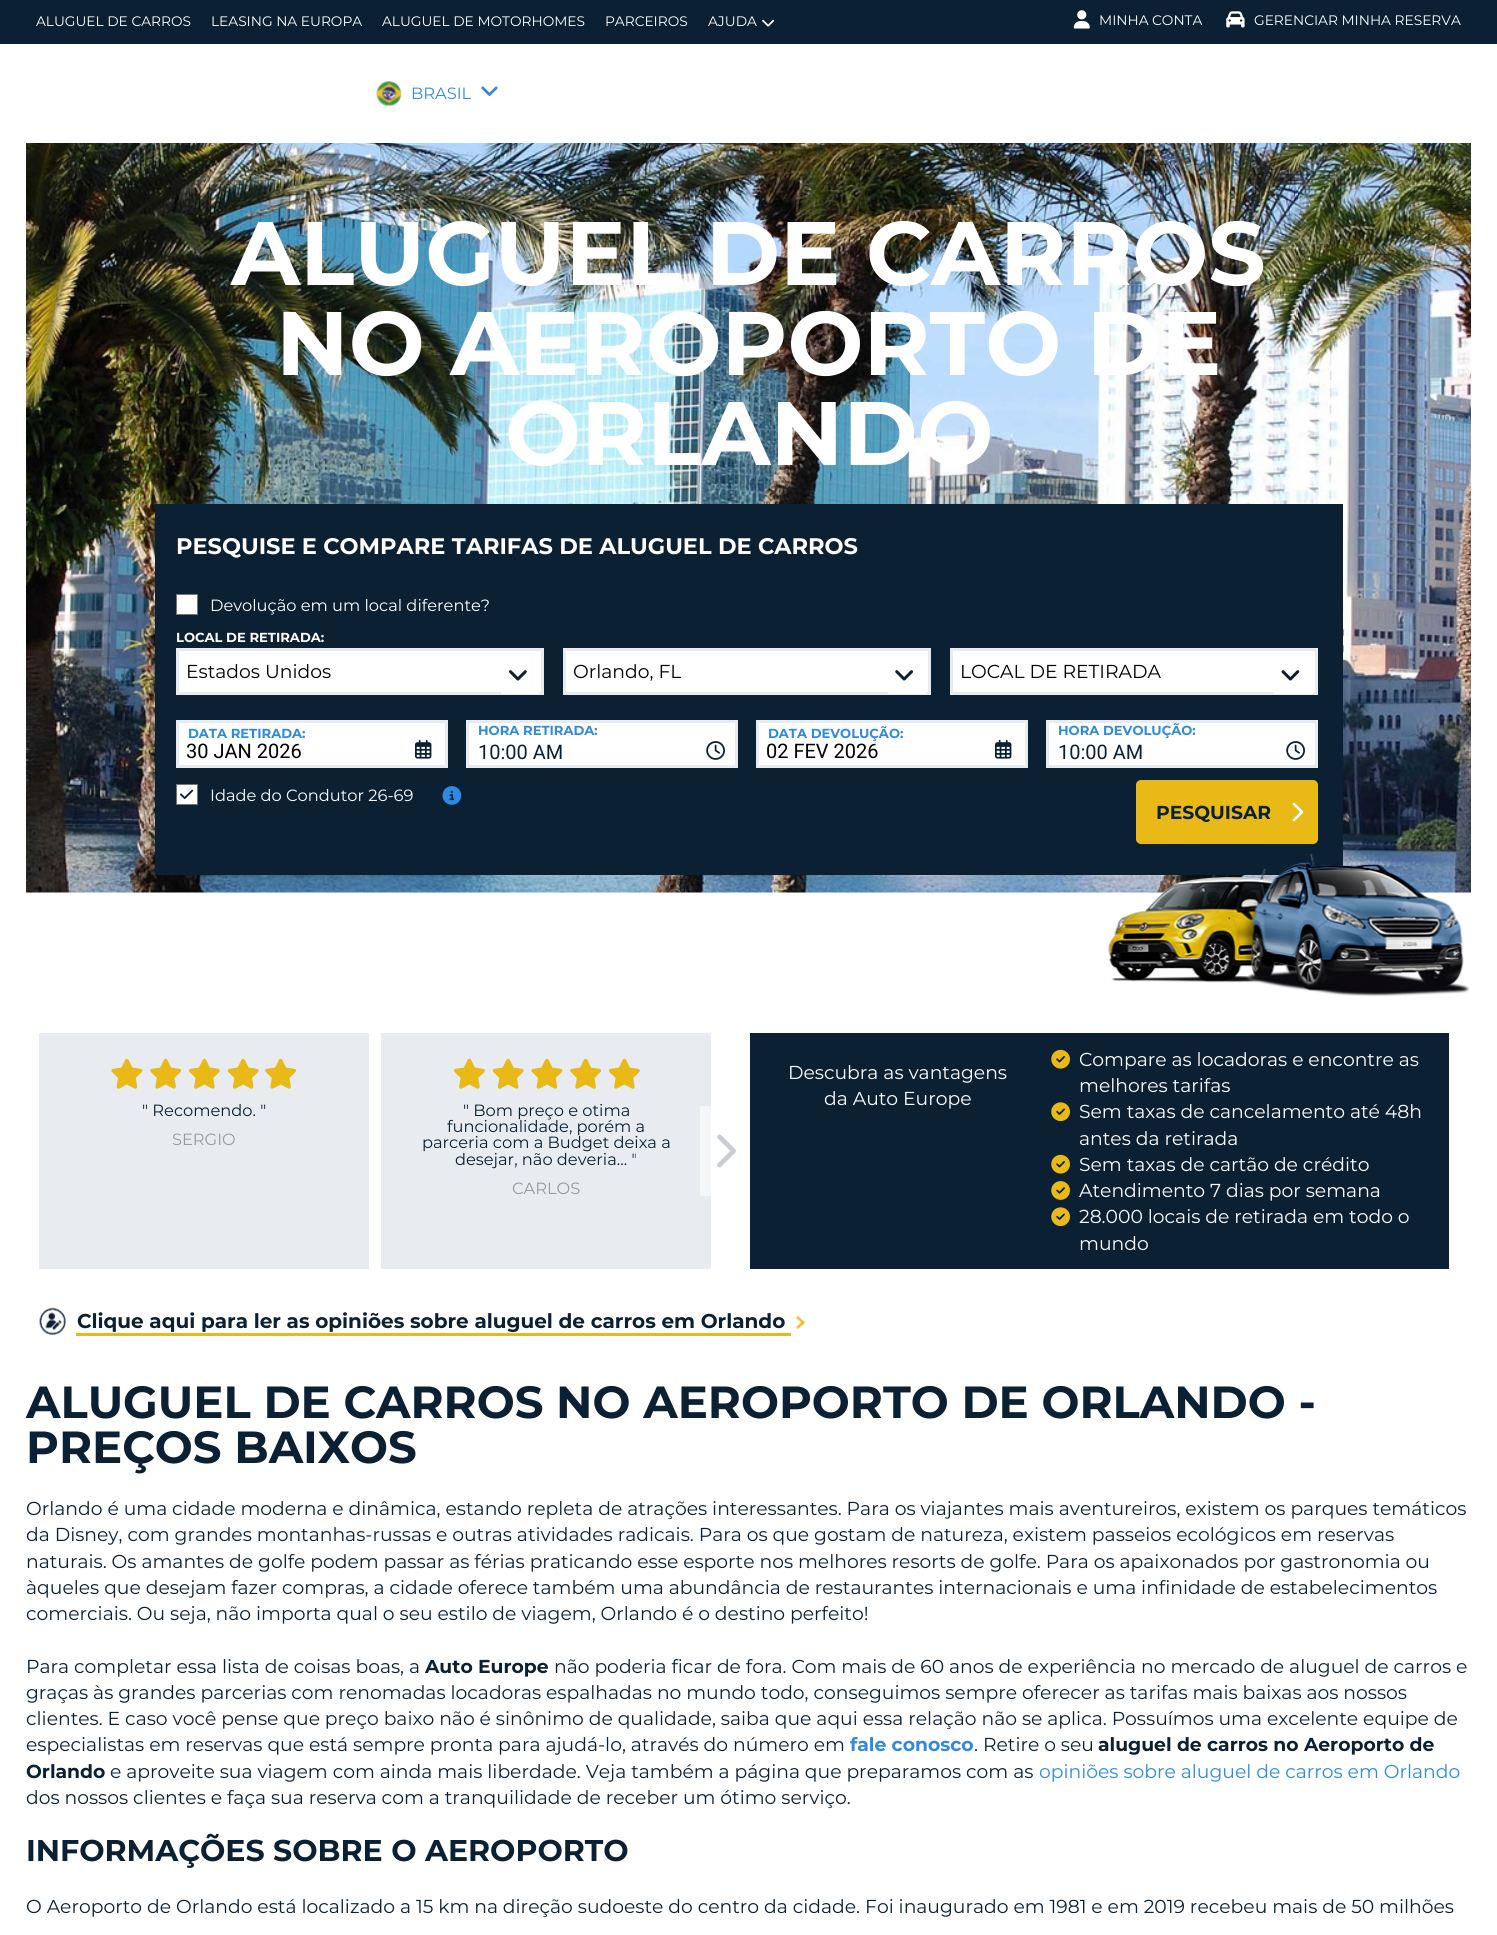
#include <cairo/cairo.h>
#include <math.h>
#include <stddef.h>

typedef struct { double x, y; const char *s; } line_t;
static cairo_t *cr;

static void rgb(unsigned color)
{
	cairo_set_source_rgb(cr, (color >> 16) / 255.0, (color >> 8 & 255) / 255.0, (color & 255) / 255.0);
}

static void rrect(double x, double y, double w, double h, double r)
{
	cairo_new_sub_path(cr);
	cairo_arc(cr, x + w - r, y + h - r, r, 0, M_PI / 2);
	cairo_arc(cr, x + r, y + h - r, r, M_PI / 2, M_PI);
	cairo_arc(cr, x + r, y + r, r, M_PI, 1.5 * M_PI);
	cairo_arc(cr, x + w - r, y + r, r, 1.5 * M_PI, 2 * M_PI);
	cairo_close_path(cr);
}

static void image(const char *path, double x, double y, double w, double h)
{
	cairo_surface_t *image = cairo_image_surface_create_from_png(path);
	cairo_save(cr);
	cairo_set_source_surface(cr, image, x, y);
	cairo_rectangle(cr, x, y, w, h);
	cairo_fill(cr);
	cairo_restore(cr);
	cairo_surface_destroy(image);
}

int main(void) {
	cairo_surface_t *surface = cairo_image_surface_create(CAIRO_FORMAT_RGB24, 1497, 1935);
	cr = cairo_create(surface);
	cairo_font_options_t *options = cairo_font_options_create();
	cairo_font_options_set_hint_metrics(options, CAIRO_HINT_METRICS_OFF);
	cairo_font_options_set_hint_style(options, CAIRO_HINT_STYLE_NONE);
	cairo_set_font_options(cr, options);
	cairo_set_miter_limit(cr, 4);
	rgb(0xffffff);
	cairo_paint(cr);
	rgb(0x0b2033);
	cairo_rectangle(cr, 0, 0, 1497, 44);
	cairo_fill(cr);
	image("img/1.png", 762, 19, 13, 8);
	image("img/2.png", 1073, 10, 17, 19);
	image("img/3.png", 1226, 11, 19, 17);
	image("img/4.png", 376, 81, 26, 26);
	image("img/5.png", 481, 86, 17, 10);
	image("img/6.png", 26, 143, 1445, 750);
	cairo_rectangle(cr, 155, 504, 1188, 371);
	cairo_fill(cr);
	rgb(0xffffff);
	cairo_rectangle(cr, 176.5, 594.5, 21, 20);
	cairo_fill_preserve(cr);
	rgb(0x6f7579);
	cairo_set_line_width(cr, 1);
	cairo_stroke(cr);
	rgb(0xffffff);
	cairo_rectangle(cr, 177.5, 649.5, 365, 44);
	cairo_fill_preserve(cr);
	rgb(0xe8ecf0);
	cairo_set_line_width(cr, 3);
	cairo_stroke(cr);
	rgb(0xffffff);
	cairo_rectangle(cr, 501, 692, 38, 2);
	cairo_fill(cr);
	image("img/7.png", 509, 670, 18, 11);
	cairo_rectangle(cr, 564.5, 649.5, 365, 44);
	cairo_fill_preserve(cr);
	rgb(0xe8ecf0);
	cairo_stroke(cr);
	rgb(0xffffff);
	cairo_rectangle(cr, 888, 692, 38, 2);
	cairo_fill(cr);
	image("img/8.png", 895, 670, 18, 11);
	cairo_rectangle(cr, 951.5, 649.5, 365, 44);
	cairo_fill_preserve(cr);
	rgb(0xe8ecf0);
	cairo_stroke(cr);
	rgb(0xffffff);
	cairo_rectangle(cr, 1274, 692, 39, 2);
	cairo_fill(cr);
	image("img/9.png", 1281, 670, 19, 11);
	cairo_rectangle(cr, 177.5, 721.5, 269, 45);
	cairo_fill_preserve(cr);
	rgb(0xe8ecf0);
	cairo_stroke(cr);
	image("img/10.png", 415, 739, 17, 20);
	rgb(0xffffff);
	cairo_rectangle(cr, 467.5, 721.5, 269, 45);
	cairo_fill_preserve(cr);
	rgb(0xe8ecf0);
	cairo_stroke(cr);
	image("img/11.png", 706, 741, 19, 19);
	rgb(0xffffff);
	cairo_rectangle(cr, 757.5, 721.5, 269, 45);
	cairo_fill_preserve(cr);
	rgb(0xe8ecf0);
	cairo_stroke(cr);
	image("img/10.png", 995, 739, 17, 20);
	rgb(0xffffff);
	cairo_rectangle(cr, 1047.5, 721.5, 269, 45);
	cairo_fill_preserve(cr);
	rgb(0xe8ecf0);
	cairo_stroke(cr);
	image("img/11.png", 1286, 741, 19, 19);
	rgb(0xffffff);
	cairo_rectangle(cr, 176.5, 784.5, 21, 20);
	cairo_fill_preserve(cr);
	rgb(0x6f7579);
	cairo_set_line_width(cr, 1);
	cairo_stroke(cr);
	image("img/12.png", 180, 789, 14, 10);
	image("img/13.png", 442, 786, 20, 19);
	rgb(0xe8b917);
	rrect(1136.5, 780.5, 181, 63, 4.5);
	cairo_fill_preserve(cr);
	cairo_stroke(cr);
	image("img/14.png", 1292, 802, 12, 20);
	image("img/15.png", 1108, 853, 362, 144);
	rgb(0xe8ecf0);
	cairo_rectangle(cr, 39, 1033, 330, 236);
	cairo_fill(cr);
	image("img/16.png", 111, 1058, 32, 31);
	image("img/17.png", 150, 1058, 32, 31);
	image("img/18.png", 189, 1058, 31, 31);
	image("img/19.png", 227, 1058, 32, 31);
	image("img/17.png", 265, 1058, 32, 31);
	cairo_rectangle(cr, 381, 1033, 330, 236);
	cairo_fill(cr);
	rgb(0xf4f6f8);
	cairo_rectangle(cr, 700, 1106, 11, 90);
	cairo_fill(cr);
	image("img/18.png", 454, 1058, 31, 31);
	image("img/19.png", 492, 1058, 32, 31);
	image("img/16.png", 531, 1058, 32, 31);
	image("img/17.png", 570, 1058, 32, 31);
	image("img/18.png", 609, 1058, 31, 31);
	image("img/20.png", 717, 1134, 19, 34);
	rgb(0x0b2033);
	cairo_rectangle(cr, 750, 1033, 699, 236);
	cairo_fill(cr);
	image("img/21.png", 1051, 1049, 19, 20);
	image("img/22.png", 1051, 1102, 19, 20);
	image("img/21.png", 1051, 1154, 19, 20);
	image("img/23.png", 1051, 1181, 19, 19);
	image("img/22.png", 1051, 1207, 19, 20);
	image("img/24.png", 39, 1307, 27, 28);
	rgb(0xe8b917);
	cairo_rectangle(cr, 76, 1333, 715, 3);
	cairo_fill(cr);
	image("img/25.png", 795, 1315, 11, 15);
	cairo_select_font_face(cr, "Montserrat", CAIRO_FONT_SLANT_NORMAL, CAIRO_FONT_WEIGHT_NORMAL);
	cairo_set_font_size(cr, 13.75);
	rgb(0xffffff);
	{
		static const line_t items[] = {
			{36, 26, "ALUGUEL DE CARROS"},
			{211, 26, "LEASING NA EUROPA"},
			{382, 26, "ALUGUEL DE MOTORHOMES"},
			{605, 26, "PARCEIROS"},
			{708, 26, "AJUDA"},
			{1099, 25, "MINHA CONTA"},
			{1254, 25, "GERENCIAR MINHA RESERVA"},
		};
		for (size_t i = 0; i < sizeof items / sizeof *items; i++) {
			cairo_move_to(cr, items[i].x, items[i].y);
			cairo_show_text(cr, items[i].s);
		}
	}
	cairo_set_font_size(cr, 16.25);
	rgb(0x3089e0);
	cairo_move_to(cr, 411, 99);
	cairo_show_text(cr, "BRASIL");
	cairo_select_font_face(cr, "Montserrat", CAIRO_FONT_SLANT_NORMAL, CAIRO_FONT_WEIGHT_BOLD);
	cairo_set_font_size(cr, 90);
	rgb(0xffffff);
	{
		static const line_t items[] = {
			{231, 285, "ALUGUEL DE CARROS"},
			{276, 375, "NO AEROPORTO DE"},
			{505, 465, "ORLANDO"},
		};
		for (size_t i = 0; i < sizeof items / sizeof *items; i++) {
			cairo_move_to(cr, items[i].x, items[i].y);
			cairo_show_text(cr, items[i].s);
		}
	}
	cairo_set_font_size(cr, 22.5);
	cairo_move_to(cr, 176, 554);
	cairo_show_text(cr, "PESQUISE E COMPARE TARIFAS DE ALUGUEL DE CARROS");
	cairo_select_font_face(cr, "Montserrat", CAIRO_FONT_SLANT_NORMAL, CAIRO_FONT_WEIGHT_NORMAL);
	cairo_set_font_size(cr, 16.25);
	cairo_move_to(cr, 210, 611);
	cairo_show_text(cr, "Devolução em um local diferente?");
	cairo_select_font_face(cr, "Montserrat", CAIRO_FONT_SLANT_NORMAL, CAIRO_FONT_WEIGHT_BOLD);
	cairo_set_font_size(cr, 13.1);
	cairo_move_to(cr, 176, 642);
	cairo_show_text(cr, "LOCAL DE RETIRADA:");
	cairo_select_font_face(cr, "Montserrat", CAIRO_FONT_SLANT_NORMAL, CAIRO_FONT_WEIGHT_NORMAL);
	cairo_set_font_size(cr, 18.75);
	rgb(0x000000);
	{
		static const line_t items[] = {
			{186, 678, "Estados Unidos"},
			{573, 678, "Orlando, FL"},
			{960, 678, "LOCAL DE RETIRADA"},
		};
		for (size_t i = 0; i < sizeof items / sizeof *items; i++) {
			cairo_move_to(cr, items[i].x, items[i].y);
			cairo_show_text(cr, items[i].s);
		}
	}
	cairo_select_font_face(cr, "Montserrat", CAIRO_FONT_SLANT_NORMAL, CAIRO_FONT_WEIGHT_BOLD);
	cairo_set_font_size(cr, 13.1);
	rgb(0x3089e0);
	cairo_move_to(cr, 188, 738);
	cairo_show_text(cr, "DATA RETIRADA:");
	cairo_select_font_face(cr, "Roboto", CAIRO_FONT_SLANT_NORMAL, CAIRO_FONT_WEIGHT_NORMAL);
	cairo_set_font_size(cr, 20);
	rgb(0x000000);
	cairo_move_to(cr, 186, 758);
	cairo_show_text(cr, "30 JAN 2026");
	cairo_select_font_face(cr, "Montserrat", CAIRO_FONT_SLANT_NORMAL, CAIRO_FONT_WEIGHT_BOLD);
	cairo_set_font_size(cr, 13.1);
	rgb(0x3089e0);
	cairo_move_to(cr, 478, 735);
	cairo_show_text(cr, "HORA RETIRADA:");
	cairo_select_font_face(cr, "Roboto", CAIRO_FONT_SLANT_NORMAL, CAIRO_FONT_WEIGHT_NORMAL);
	cairo_set_font_size(cr, 20);
	rgb(0x0b2033);
	cairo_move_to(cr, 478, 759);
	cairo_show_text(cr, "10:00 AM");
	cairo_select_font_face(cr, "Montserrat", CAIRO_FONT_SLANT_NORMAL, CAIRO_FONT_WEIGHT_BOLD);
	cairo_set_font_size(cr, 13.1);
	rgb(0x3089e0);
	cairo_move_to(cr, 768, 738);
	cairo_show_text(cr, "DATA DEVOLUÇÃO:");
	cairo_select_font_face(cr, "Roboto", CAIRO_FONT_SLANT_NORMAL, CAIRO_FONT_WEIGHT_NORMAL);
	cairo_set_font_size(cr, 20);
	rgb(0x000000);
	cairo_move_to(cr, 766, 758);
	cairo_show_text(cr, "02 FEV 2026");
	cairo_select_font_face(cr, "Montserrat", CAIRO_FONT_SLANT_NORMAL, CAIRO_FONT_WEIGHT_BOLD);
	cairo_set_font_size(cr, 13.1);
	rgb(0x3089e0);
	cairo_move_to(cr, 1058, 735);
	cairo_show_text(cr, "HORA DEVOLUÇÃO:");
	cairo_select_font_face(cr, "Roboto", CAIRO_FONT_SLANT_NORMAL, CAIRO_FONT_WEIGHT_NORMAL);
	cairo_set_font_size(cr, 20);
	rgb(0x0b2033);
	cairo_move_to(cr, 1058, 759);
	cairo_show_text(cr, "10:00 AM");
	cairo_select_font_face(cr, "Montserrat", CAIRO_FONT_SLANT_NORMAL, CAIRO_FONT_WEIGHT_NORMAL);
	cairo_set_font_size(cr, 16.25);
	rgb(0xffffff);
	cairo_move_to(cr, 210, 801);
	cairo_show_text(cr, "Idade do Condutor 26-69");
	cairo_select_font_face(cr, "Montserrat", CAIRO_FONT_SLANT_NORMAL, CAIRO_FONT_WEIGHT_BOLD);
	cairo_set_font_size(cr, 18.75);
	rgb(0x0b2033);
	cairo_move_to(cr, 1156, 819);
	cairo_show_text(cr, "PESQUISAR");
	cairo_select_font_face(cr, "Montserrat", CAIRO_FONT_SLANT_NORMAL, CAIRO_FONT_WEIGHT_NORMAL);
	cairo_set_font_size(cr, 16.25);
	cairo_move_to(cr, 142, 1116);
	cairo_show_text(cr, "\" Recomendo. \"");
	rgb(0x969b9f);
	cairo_move_to(cr, 172, 1145);
	cairo_show_text(cr, "SERGIO");
	rgb(0x0b2033);
	{
		static const line_t items[] = {
			{463, 1116, "\" Bom preço e otima"},
			{447, 1132, "funcionalidade, porém a"},
			{422, 1148, "parceria com a Budget deixa a"},
			{455, 1165, "desejar, não deveria... \""},
		};
		for (size_t i = 0; i < sizeof items / sizeof *items; i++) {
			cairo_move_to(cr, items[i].x, items[i].y);
			cairo_show_text(cr, items[i].s);
		}
	}
	rgb(0x969b9f);
	cairo_move_to(cr, 512, 1194);
	cairo_show_text(cr, "CARLOS");
	cairo_set_font_size(cr, 18.75);
	rgb(0xffffff);
	{
		static const line_t items[] = {
			{788, 1079, "Descubra as vantagens"},
			{824, 1105, "da Auto Europe"},
			{1079, 1066, "Compare as locadoras e encontre as"},
			{1079, 1092, "melhores tarifas"},
			{1079, 1118, "Sem taxas de cancelamento até 48h"},
			{1079, 1145, "antes da retirada"},
			{1079, 1171, "Sem taxas de cartão de crédito"},
			{1079, 1197, "Atendimento 7 dias por semana"},
			{1079, 1223, "28.000 locais de retirada em todo o"},
			{1079, 1250, "mundo"},
		};
		for (size_t i = 0; i < sizeof items / sizeof *items; i++) {
			cairo_move_to(cr, items[i].x, items[i].y);
			cairo_show_text(cr, items[i].s);
		}
	}
	cairo_select_font_face(cr, "Montserrat", CAIRO_FONT_SLANT_NORMAL, CAIRO_FONT_WEIGHT_BOLD);
	cairo_set_font_size(cr, 20);
	rgb(0x0b2033);
	cairo_move_to(cr, 77, 1328);
	cairo_show_text(cr, "Clique aqui para ler as opiniões sobre aluguel de carros em Orlando");
	cairo_set_font_size(cr, 45);
	cairo_move_to(cr, 26, 1418);
	cairo_show_text(cr, "ALUGUEL DE CARROS NO AEROPORTO DE ORLANDO -");
	cairo_move_to(cr, 26, 1463);
	cairo_show_text(cr, "PREÇOS BAIXOS");
	cairo_select_font_face(cr, "Montserrat", CAIRO_FONT_SLANT_NORMAL, CAIRO_FONT_WEIGHT_NORMAL);
	cairo_set_font_size(cr, 18.75);
	{
		static const line_t items[] = {
			{26, 1515, "Orlando é uma cidade moderna e dinâmica, estando repleta de atrações interessantes. Para os viajantes mais aventureiros, existem os parques temáticos"},
			{26, 1541, "da Disney, com grandes montanhas-russas e outras atividades radicais. Para os que gostam de natureza, existem passeios ecológicos em reservas"},
			{26, 1568, "naturais. Os amantes de golfe podem passar as férias praticando esse esporte nos melhores resorts de golfe. Para os apaixonados por gastronomia ou"},
			{26, 1594, "àqueles que desejam fazer compras, a cidade oferece também uma abundância de restaurantes internacionais e uma infinidade de estabelecimentos"},
			{26, 1620, "comerciais. Ou seja, não importa qual o seu estilo de viagem, Orlando é o destino perfeito!"},
			{26, 1673, "Para completar essa lista de coisas boas, a"},
		};
		for (size_t i = 0; i < sizeof items / sizeof *items; i++) {
			cairo_move_to(cr, items[i].x, items[i].y);
			cairo_show_text(cr, items[i].s);
		}
	}
	cairo_select_font_face(cr, "Montserrat", CAIRO_FONT_SLANT_NORMAL, CAIRO_FONT_WEIGHT_BOLD);
	cairo_move_to(cr, 425, 1673);
	cairo_show_text(cr, "Auto Europe");
	cairo_select_font_face(cr, "Montserrat", CAIRO_FONT_SLANT_NORMAL, CAIRO_FONT_WEIGHT_NORMAL);
	{
		static const line_t items[] = {
			{554, 1673, "não poderia ficar de fora. Com mais de 60 anos de experiência no mercado de aluguel de carros e"},
			{26, 1699, "graças às grandes parcerias com renomadas locadoras espalhadas no mundo todo, conseguimos sempre oferecer as tarifas mais baixas aos nossos"},
			{26, 1725, "clientes. E caso você pense que preço baixo não é sinônimo de qualidade, saiba que aqui essa relação não se aplica. Possuímos uma excelente equipe de"},
			{26, 1751, "especialistas em reservas que está sempre pronta para ajudá-lo, através do número em"},
		};
		for (size_t i = 0; i < sizeof items / sizeof *items; i++) {
			cairo_move_to(cr, items[i].x, items[i].y);
			cairo_show_text(cr, items[i].s);
		}
	}
	cairo_select_font_face(cr, "Montserrat", CAIRO_FONT_SLANT_NORMAL, CAIRO_FONT_WEIGHT_BOLD);
	rgb(0x3089e0);
	cairo_move_to(cr, 850, 1751);
	cairo_show_text(cr, "fale conosco");
	cairo_select_font_face(cr, "Montserrat", CAIRO_FONT_SLANT_NORMAL, CAIRO_FONT_WEIGHT_NORMAL);
	rgb(0x0b2033);
	cairo_move_to(cr, 974, 1751);
	cairo_show_text(cr, ". Retire o seu");
	cairo_select_font_face(cr, "Montserrat", CAIRO_FONT_SLANT_NORMAL, CAIRO_FONT_WEIGHT_BOLD);
	cairo_move_to(cr, 1098, 1751);
	cairo_show_text(cr, "aluguel de carros no Aeroporto de");
	cairo_move_to(cr, 26, 1778);
	cairo_show_text(cr, "Orlando");
	cairo_select_font_face(cr, "Montserrat", CAIRO_FONT_SLANT_NORMAL, CAIRO_FONT_WEIGHT_NORMAL);
	cairo_move_to(cr, 110, 1778);
	cairo_show_text(cr, "e aproveite sua viagem com ainda mais liberdade. Veja também a página que preparamos com as");
	rgb(0x3089e0);
	cairo_move_to(cr, 1039, 1778);
	cairo_show_text(cr, "opiniões sobre aluguel de carros em Orlando");
	rgb(0x0b2033);
	cairo_move_to(cr, 26, 1804);
	cairo_show_text(cr, "dos nossos clientes e faça sua reserva com a tranquilidade de receber um ótimo serviço.");
	cairo_select_font_face(cr, "Montserrat", CAIRO_FONT_SLANT_NORMAL, CAIRO_FONT_WEIGHT_BOLD);
	cairo_set_font_size(cr, 30);
	cairo_move_to(cr, 26, 1861);
	cairo_show_text(cr, "INFORMAÇÕES SOBRE O AEROPORTO");
	cairo_select_font_face(cr, "Montserrat", CAIRO_FONT_SLANT_NORMAL, CAIRO_FONT_WEIGHT_NORMAL);
	cairo_set_font_size(cr, 18.75);
	cairo_move_to(cr, 26, 1913);
	cairo_show_text(cr, "O Aeroporto de Orlando está localizado a 15 km na direção sudoeste do centro da cidade. Foi inaugurado em 1981 e em 2019 recebeu mais de 50 milhões");
	cairo_surface_write_to_png(surface, "page.png");
	cairo_font_options_destroy(options);
	cairo_destroy(cr);
	cairo_surface_destroy(surface);
	return 0;
}
